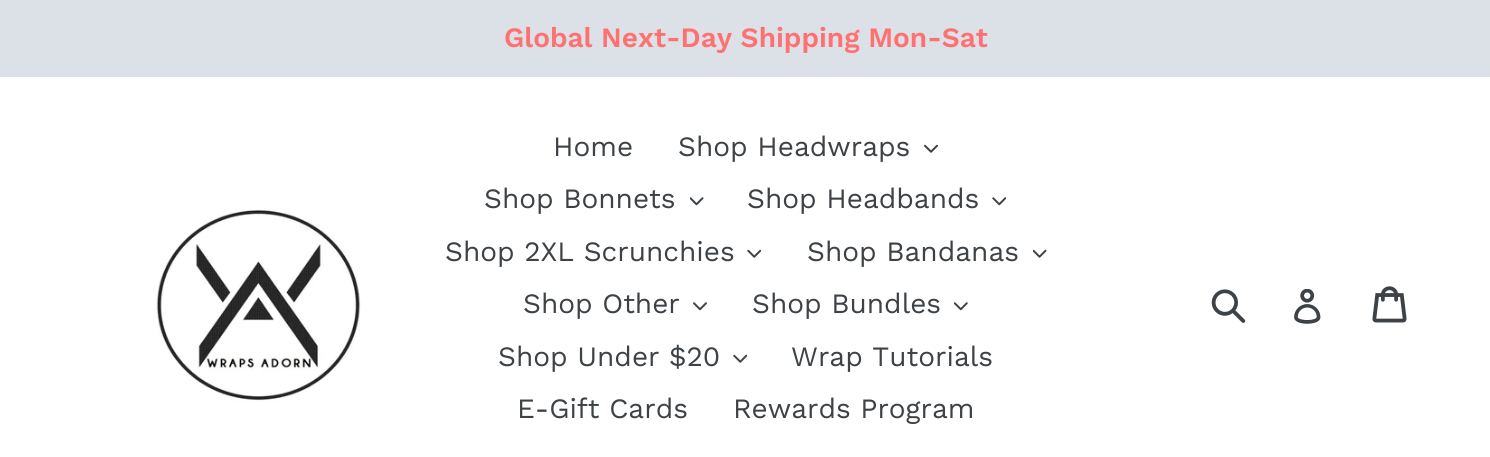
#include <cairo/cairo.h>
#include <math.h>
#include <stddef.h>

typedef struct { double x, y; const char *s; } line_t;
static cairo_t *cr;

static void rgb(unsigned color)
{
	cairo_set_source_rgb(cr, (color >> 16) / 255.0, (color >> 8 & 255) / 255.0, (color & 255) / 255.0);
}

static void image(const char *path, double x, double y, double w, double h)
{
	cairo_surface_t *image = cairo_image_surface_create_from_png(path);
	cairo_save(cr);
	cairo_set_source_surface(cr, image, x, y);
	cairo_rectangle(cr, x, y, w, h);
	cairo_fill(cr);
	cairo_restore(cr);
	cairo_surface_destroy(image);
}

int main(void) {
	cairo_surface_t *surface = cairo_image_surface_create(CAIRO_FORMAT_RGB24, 1490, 457);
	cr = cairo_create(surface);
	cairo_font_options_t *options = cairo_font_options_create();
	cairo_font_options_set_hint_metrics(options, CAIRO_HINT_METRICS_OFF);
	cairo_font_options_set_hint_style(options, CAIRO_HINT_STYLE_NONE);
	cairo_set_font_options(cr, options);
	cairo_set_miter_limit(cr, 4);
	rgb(0xffffff);
	cairo_paint(cr);
	rgb(0xdce0e7);
	cairo_rectangle(cr, 0, 0, 1490, 77);
	cairo_fill(cr);
	image("img/1.png", 155, 210, 206, 192);
	image("img/2.png", 924, 144, 14, 9);
	image("img/3.png", 690, 197, 14, 9);
	image("img/4.png", 992, 197, 14, 9);
	image("img/5.png", 747, 249, 14, 9);
	image("img/6.png", 1033, 249, 14, 9);
	image("img/7.png", 693, 302, 14, 9);
	image("img/8.png", 954, 302, 14, 9);
	image("img/5.png", 733, 354, 14, 9);
	image("img/9.png", 1211, 289, 35, 34);
	image("img/10.png", 1294, 289, 27, 35);
	image("img/11.png", 1372, 286, 35, 37);
	cairo_select_font_face(cr, "Work Sans SemiBold", CAIRO_FONT_SLANT_NORMAL, CAIRO_FONT_WEIGHT_NORMAL);
	cairo_set_font_size(cr, 28);
	rgb(0xff7171);
	cairo_move_to(cr, 504, 47);
	cairo_show_text(cr, "Global Next-Day Shipping Mon-Sat");
	cairo_select_font_face(cr, "Work Sans", CAIRO_FONT_SLANT_NORMAL, CAIRO_FONT_WEIGHT_NORMAL);
	rgb(0x3d4246);
	{
		static const line_t items[] = {
			{553, 156, "Home"},
			{678, 156, "Shop Headwraps"},
			{484, 208, "Shop Bonnets"},
			{747, 208, "Shop Headbands"},
			{445, 261, "Shop 2XL Scrunchies"},
			{807, 261, "Shop Bandanas"},
			{523, 313, "Shop Other"},
			{752, 313, "Shop Bundles"},
			{498, 366, "Shop Under $20"},
			{791, 366, "Wrap Tutorials"},
			{517, 418, "E-Gift Cards"},
			{733, 418, "Rewards Program"},
		};
		for (size_t i = 0; i < sizeof items / sizeof *items; i++) {
			cairo_move_to(cr, items[i].x, items[i].y);
			cairo_show_text(cr, items[i].s);
		}
	}
	cairo_surface_write_to_png(surface, "page.png");
	cairo_font_options_destroy(options);
	cairo_destroy(cr);
	cairo_surface_destroy(surface);
	return 0;
}
